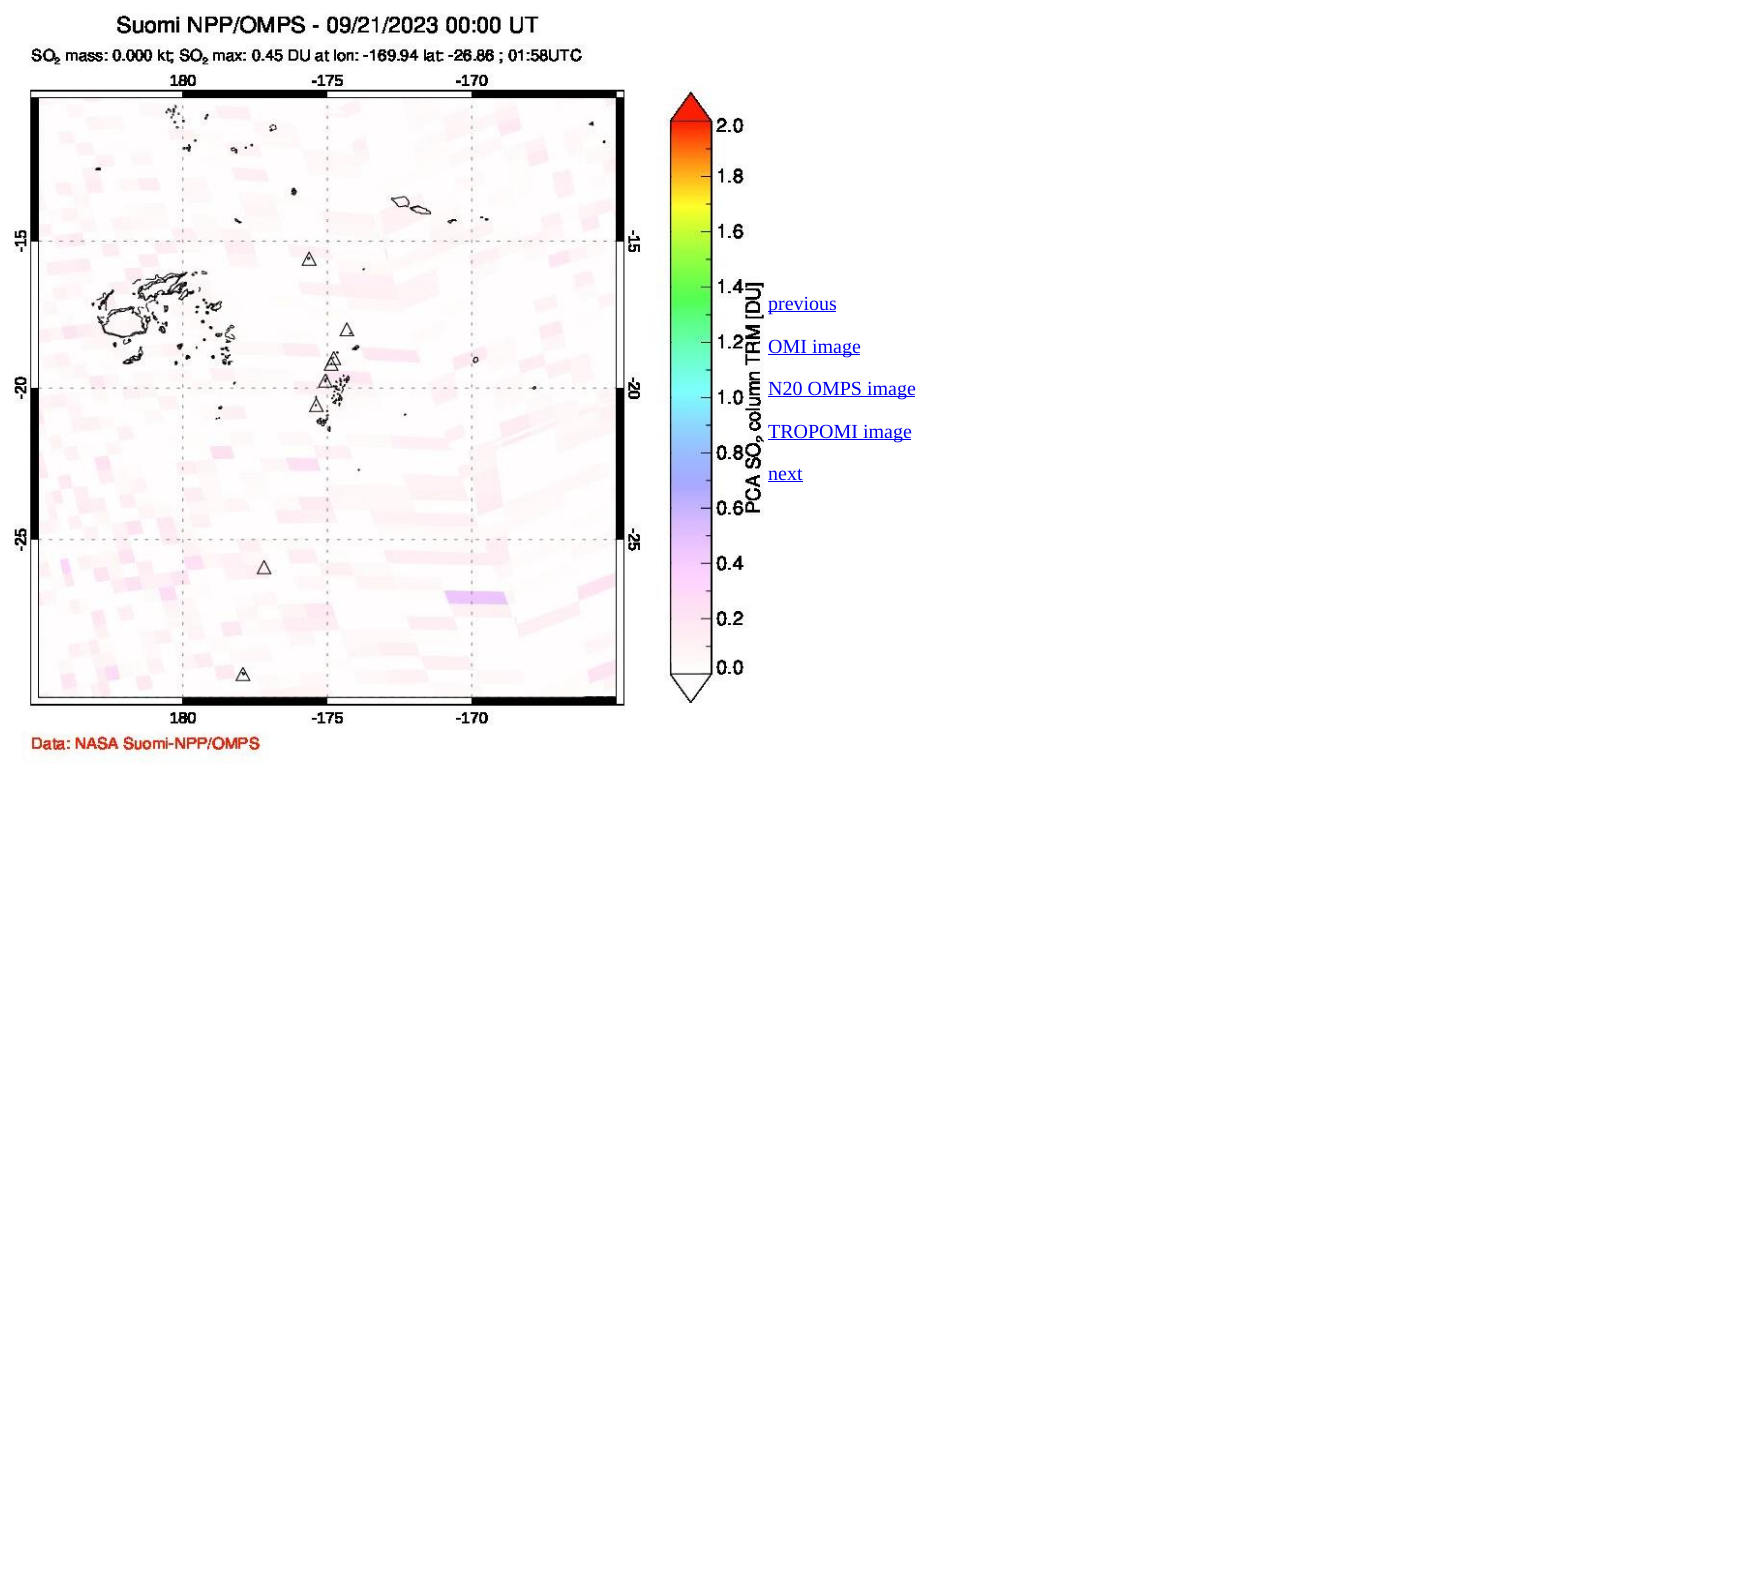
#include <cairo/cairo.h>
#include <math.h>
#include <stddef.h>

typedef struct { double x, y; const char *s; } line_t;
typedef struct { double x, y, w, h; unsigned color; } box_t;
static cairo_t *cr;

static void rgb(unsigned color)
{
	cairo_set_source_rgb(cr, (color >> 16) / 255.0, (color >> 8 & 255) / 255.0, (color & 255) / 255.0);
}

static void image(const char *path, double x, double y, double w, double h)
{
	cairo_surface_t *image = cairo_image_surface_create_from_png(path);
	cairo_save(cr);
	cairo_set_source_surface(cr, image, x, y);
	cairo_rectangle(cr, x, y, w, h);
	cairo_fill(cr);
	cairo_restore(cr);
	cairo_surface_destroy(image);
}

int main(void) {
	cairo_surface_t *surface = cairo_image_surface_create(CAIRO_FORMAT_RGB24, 1741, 1594);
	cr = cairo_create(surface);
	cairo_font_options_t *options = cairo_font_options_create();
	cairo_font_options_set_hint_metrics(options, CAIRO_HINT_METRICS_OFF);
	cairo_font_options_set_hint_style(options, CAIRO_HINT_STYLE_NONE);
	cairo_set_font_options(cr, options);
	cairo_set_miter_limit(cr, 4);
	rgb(0xffffff);
	cairo_paint(cr);
	image("img/1.png", 13, 13, 751, 751);
	{
		static const box_t items[] = {
			{768, 311, 68, 1, 0x0000ee},
			{768, 354, 92, 1, 0x0000ee},
			{768, 396, 147, 1, 0x0000ee},
			{768, 439, 143, 1, 0x0000ee},
			{768, 481, 35, 1, 0x0000ee},
		};
		for (size_t i = 0; i < sizeof items / sizeof *items; i++) {
			rgb(items[i].color);
			cairo_rectangle(cr, items[i].x, items[i].y, items[i].w, items[i].h);
			cairo_fill(cr);
		}
	}
	cairo_select_font_face(cr, "Liberation Serif", CAIRO_FONT_SLANT_NORMAL, CAIRO_FONT_WEIGHT_NORMAL);
	cairo_set_font_size(cr, 20);
	{
		static const line_t items[] = {
			{768, 310, "previous"},
			{768, 353, "OMI image"},
			{768, 395, "N20 OMPS image"},
			{768, 438, "TROPOMI image"},
			{768, 480, "next"},
		};
		for (size_t i = 0; i < sizeof items / sizeof *items; i++) {
			cairo_move_to(cr, items[i].x, items[i].y);
			cairo_show_text(cr, items[i].s);
		}
	}
	cairo_surface_write_to_png(surface, "page.png");
	cairo_font_options_destroy(options);
	cairo_destroy(cr);
	cairo_surface_destroy(surface);
	return 0;
}
